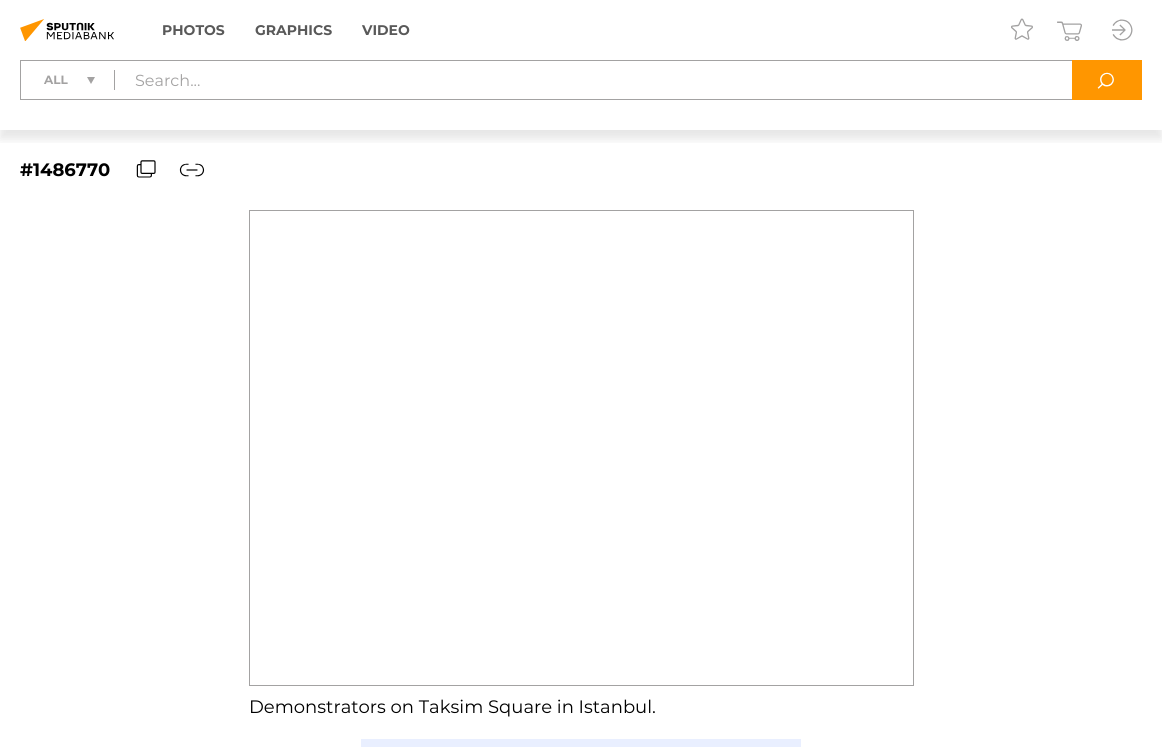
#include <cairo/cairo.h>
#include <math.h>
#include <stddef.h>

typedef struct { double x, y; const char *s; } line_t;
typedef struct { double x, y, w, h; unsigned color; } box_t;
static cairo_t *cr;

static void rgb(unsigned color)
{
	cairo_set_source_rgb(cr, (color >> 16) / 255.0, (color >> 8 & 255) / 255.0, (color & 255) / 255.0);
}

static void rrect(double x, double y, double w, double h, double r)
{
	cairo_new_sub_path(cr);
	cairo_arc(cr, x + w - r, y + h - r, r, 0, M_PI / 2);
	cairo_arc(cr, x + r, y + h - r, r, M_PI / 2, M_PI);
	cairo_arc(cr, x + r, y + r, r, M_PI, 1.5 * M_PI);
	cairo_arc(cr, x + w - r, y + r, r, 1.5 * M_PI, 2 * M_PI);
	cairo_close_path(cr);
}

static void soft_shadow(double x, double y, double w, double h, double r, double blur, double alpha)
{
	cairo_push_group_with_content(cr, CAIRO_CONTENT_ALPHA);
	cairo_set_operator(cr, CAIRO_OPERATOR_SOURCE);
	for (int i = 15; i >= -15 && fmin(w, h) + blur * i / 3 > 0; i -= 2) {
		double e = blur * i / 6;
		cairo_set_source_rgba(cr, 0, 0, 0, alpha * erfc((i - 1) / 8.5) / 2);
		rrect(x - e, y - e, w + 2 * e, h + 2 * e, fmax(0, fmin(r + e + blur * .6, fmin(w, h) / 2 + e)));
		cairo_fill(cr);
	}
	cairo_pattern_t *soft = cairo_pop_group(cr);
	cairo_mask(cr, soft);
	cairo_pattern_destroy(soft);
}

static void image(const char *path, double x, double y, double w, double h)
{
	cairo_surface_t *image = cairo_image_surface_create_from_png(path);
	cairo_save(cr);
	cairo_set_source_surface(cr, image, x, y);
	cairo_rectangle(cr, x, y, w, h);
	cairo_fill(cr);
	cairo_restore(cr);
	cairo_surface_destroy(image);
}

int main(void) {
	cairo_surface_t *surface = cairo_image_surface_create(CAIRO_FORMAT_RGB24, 1162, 747);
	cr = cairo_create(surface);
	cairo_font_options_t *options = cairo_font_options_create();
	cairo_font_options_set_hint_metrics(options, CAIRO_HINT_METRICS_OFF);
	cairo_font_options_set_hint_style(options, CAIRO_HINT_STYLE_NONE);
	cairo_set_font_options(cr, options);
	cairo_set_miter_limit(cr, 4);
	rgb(0xffffff);
	cairo_paint(cr);
	cairo_save(cr);
	cairo_rectangle(cr, 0, 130, 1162, 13);
	cairo_clip(cr);
	rgb(0x000000);
	soft_shadow(0, 9, 1162, 130, 0, 5, 0.1);
	cairo_restore(cr);
	image("img/1.png", 20, 19, 94, 22);
	image("img/2.png", 1011, 18, 22, 22);
	image("img/3.png", 1057, 21, 25, 20);
	image("img/4.png", 1112, 19, 21, 22);
	{
		static const box_t items[] = {
			{20, 60, 1052, 1, 0xa3a2a2},
			{20, 99, 1052, 1, 0xa3a2a2},
			{20, 60, 1, 40, 0xa3a2a2},
		};
		for (size_t i = 0; i < sizeof items / sizeof *items; i++) {
			rgb(items[i].color);
			cairo_rectangle(cr, items[i].x, items[i].y, items[i].w, items[i].h);
			cairo_fill(cr);
		}
	}
	cairo_new_path(cr);
	cairo_move_to(cr, 87, 77);
	cairo_line_to(cr, 95, 77);
	cairo_line_to(cr, 91, 84);
	cairo_close_path(cr);
	cairo_fill(cr);
	cairo_rectangle(cr, 114, 70, 1, 20);
	cairo_fill(cr);
	rgb(0xff9600);
	cairo_rectangle(cr, 1072, 60, 70, 40);
	cairo_fill(cr);
	image("img/5.png", 1097, 72, 17, 17);
	image("img/6.png", 136, 160, 20, 18);
	image("img/7.png", 179, 163, 26, 14);
	cairo_rectangle(cr, 249.5, 210.5, 664, 475);
	rgb(0xa3a2a2);
	cairo_set_line_width(cr, 1);
	cairo_stroke(cr);
	rgb(0xe9efff);
	cairo_rectangle(cr, 361, 739, 440, 8);
	cairo_fill(cr);
	cairo_select_font_face(cr, "Montserrat", CAIRO_FONT_SLANT_NORMAL, CAIRO_FONT_WEIGHT_BOLD);
	cairo_set_font_size(cr, 14);
	rgb(0x595959);
	{
		static const line_t items[] = {
			{162, 35, "PHOTOS"},
			{255, 35, "GRAPHICS"},
			{362, 35, "VIDEO"},
		};
		for (size_t i = 0; i < sizeof items / sizeof *items; i++) {
			cairo_move_to(cr, items[i].x, items[i].y);
			cairo_show_text(cr, items[i].s);
		}
	}
	cairo_set_font_size(cr, 12);
	rgb(0xa3a2a2);
	cairo_move_to(cr, 44, 84);
	cairo_show_text(cr, "ALL");
	cairo_select_font_face(cr, "Montserrat", CAIRO_FONT_SLANT_NORMAL, CAIRO_FONT_WEIGHT_NORMAL);
	cairo_set_font_size(cr, 16);
	cairo_move_to(cr, 135, 86);
	cairo_show_text(cr, "Search...");
	cairo_select_font_face(cr, "Montserrat", CAIRO_FONT_SLANT_NORMAL, CAIRO_FONT_WEIGHT_BOLD);
	cairo_set_font_size(cr, 18);
	rgb(0x000000);
	cairo_move_to(cr, 20, 176);
	cairo_show_text(cr, "#1486770");
	cairo_select_font_face(cr, "Montserrat", CAIRO_FONT_SLANT_NORMAL, CAIRO_FONT_WEIGHT_NORMAL);
	cairo_move_to(cr, 249, 713);
	cairo_show_text(cr, "Demonstrators on Taksim Square in Istanbul.");
	cairo_surface_write_to_png(surface, "page.png");
	cairo_font_options_destroy(options);
	cairo_destroy(cr);
	cairo_surface_destroy(surface);
	return 0;
}
